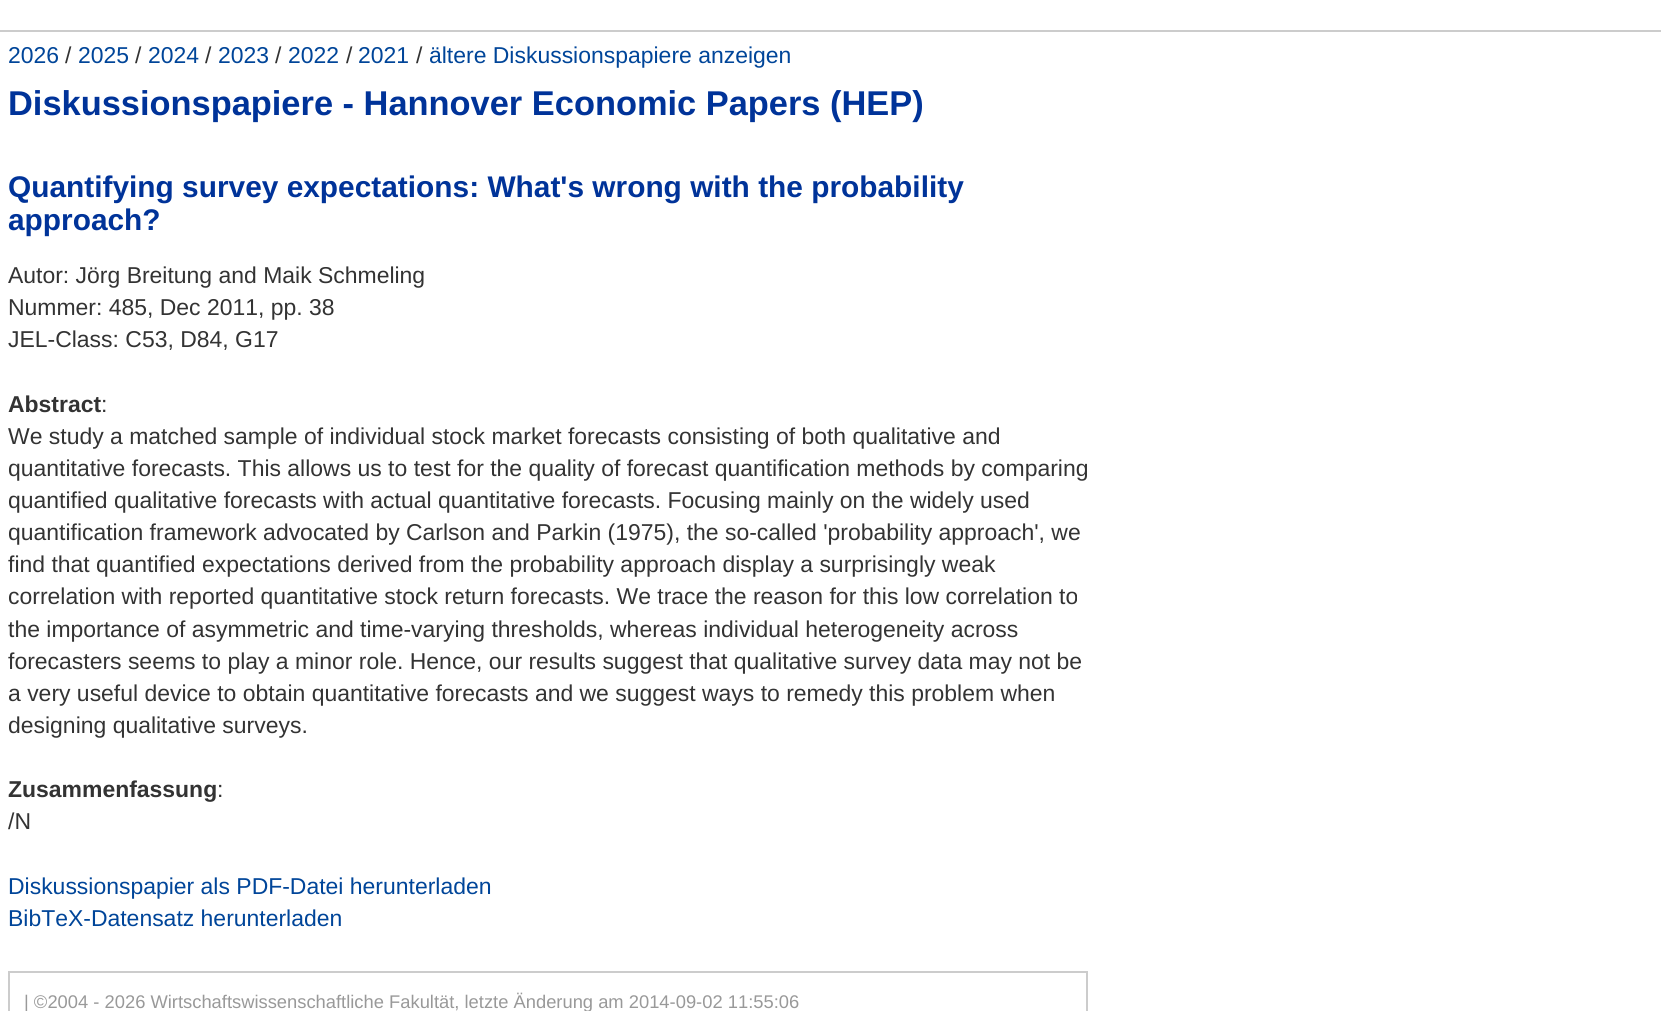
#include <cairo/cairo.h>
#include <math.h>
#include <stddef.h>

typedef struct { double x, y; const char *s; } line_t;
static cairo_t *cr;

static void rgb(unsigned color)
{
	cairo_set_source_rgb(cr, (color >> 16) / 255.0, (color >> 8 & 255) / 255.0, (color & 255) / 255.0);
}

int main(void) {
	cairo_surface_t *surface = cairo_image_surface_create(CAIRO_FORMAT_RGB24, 1661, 1011);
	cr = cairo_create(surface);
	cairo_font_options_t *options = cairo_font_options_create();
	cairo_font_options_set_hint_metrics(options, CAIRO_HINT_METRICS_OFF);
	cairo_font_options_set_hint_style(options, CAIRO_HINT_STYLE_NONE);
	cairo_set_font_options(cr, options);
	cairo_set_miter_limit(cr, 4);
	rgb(0xffffff);
	cairo_paint(cr);
	rgb(0xcccccc);
	cairo_rectangle(cr, 0, 30, 1661, 2);
	cairo_fill(cr);
	cairo_rectangle(cr, 9, 972, 1078, 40);
	cairo_stroke(cr);
	cairo_select_font_face(cr, "Liberation Sans", CAIRO_FONT_SLANT_NORMAL, CAIRO_FONT_WEIGHT_NORMAL);
	cairo_set_font_size(cr, 22.95);
	rgb(0x004599);
	cairo_move_to(cr, 8, 63);
	cairo_show_text(cr, "2026");
	rgb(0x333333);
	cairo_move_to(cr, 65, 63);
	cairo_show_text(cr, "/");
	rgb(0x004599);
	cairo_move_to(cr, 78, 63);
	cairo_show_text(cr, "2025");
	rgb(0x333333);
	cairo_move_to(cr, 135, 63);
	cairo_show_text(cr, "/");
	rgb(0x004599);
	cairo_move_to(cr, 148, 63);
	cairo_show_text(cr, "2024");
	rgb(0x333333);
	cairo_move_to(cr, 205, 63);
	cairo_show_text(cr, "/");
	rgb(0x004599);
	cairo_move_to(cr, 218, 63);
	cairo_show_text(cr, "2023");
	rgb(0x333333);
	cairo_move_to(cr, 275, 63);
	cairo_show_text(cr, "/");
	rgb(0x004599);
	cairo_move_to(cr, 288, 63);
	cairo_show_text(cr, "2022");
	rgb(0x333333);
	cairo_move_to(cr, 346, 63);
	cairo_show_text(cr, "/");
	rgb(0x004599);
	cairo_move_to(cr, 358, 63);
	cairo_show_text(cr, "2021");
	rgb(0x333333);
	cairo_move_to(cr, 416, 63);
	cairo_show_text(cr, "/");
	rgb(0x004599);
	cairo_move_to(cr, 429, 63);
	cairo_show_text(cr, "ältere Diskussionspapiere anzeigen");
	cairo_select_font_face(cr, "Liberation Sans", CAIRO_FONT_SLANT_NORMAL, CAIRO_FONT_WEIGHT_BOLD);
	cairo_set_font_size(cr, 34.4);
	rgb(0x003399);
	cairo_move_to(cr, 8, 115);
	cairo_show_text(cr, "Diskussionspapiere - Hannover Economic Papers (HEP)");
	cairo_set_font_size(cr, 29.85);
	cairo_move_to(cr, 8, 197);
	cairo_show_text(cr, "Quantifying survey expectations: What's wrong with the probability");
	cairo_move_to(cr, 8, 230);
	cairo_show_text(cr, "approach?");
	cairo_select_font_face(cr, "Liberation Sans", CAIRO_FONT_SLANT_NORMAL, CAIRO_FONT_WEIGHT_NORMAL);
	cairo_set_font_size(cr, 22.95);
	rgb(0x333333);
	{
		static const line_t items[] = {
			{8, 283, "Autor: Jörg Breitung and Maik Schmeling"},
			{8, 315, "Nummer: 485, Dec 2011, pp. 38"},
			{8, 347, "JEL-Class: C53, D84, G17"},
		};
		for (size_t i = 0; i < sizeof items / sizeof *items; i++) {
			cairo_move_to(cr, items[i].x, items[i].y);
			cairo_show_text(cr, items[i].s);
		}
	}
	cairo_select_font_face(cr, "Liberation Sans", CAIRO_FONT_SLANT_NORMAL, CAIRO_FONT_WEIGHT_BOLD);
	cairo_move_to(cr, 8, 412);
	cairo_show_text(cr, "Abstract");
	cairo_select_font_face(cr, "Liberation Sans", CAIRO_FONT_SLANT_NORMAL, CAIRO_FONT_WEIGHT_NORMAL);
	{
		static const line_t items[] = {
			{101, 412, ":"},
			{8, 444, "We study a matched sample of individual stock market forecasts consisting of both qualitative and"},
			{8, 476, "quantitative forecasts. This allows us to test for the quality of forecast quantification methods by comparing"},
			{8, 508, "quantified qualitative forecasts with actual quantitative forecasts. Focusing mainly on the widely used"},
			{8, 540, "quantification framework advocated by Carlson and Parkin (1975), the so-called 'probability approach', we"},
			{8, 572, "find that quantified expectations derived from the probability approach display a surprisingly weak"},
			{8, 604, "correlation with reported quantitative stock return forecasts. We trace the reason for this low correlation to"},
			{8, 637, "the importance of asymmetric and time-varying thresholds, whereas individual heterogeneity across"},
			{8, 669, "forecasters seems to play a minor role. Hence, our results suggest that qualitative survey data may not be"},
			{8, 701, "a very useful device to obtain quantitative forecasts and we suggest ways to remedy this problem when"},
			{8, 733, "designing qualitative surveys."},
		};
		for (size_t i = 0; i < sizeof items / sizeof *items; i++) {
			cairo_move_to(cr, items[i].x, items[i].y);
			cairo_show_text(cr, items[i].s);
		}
	}
	cairo_select_font_face(cr, "Liberation Sans", CAIRO_FONT_SLANT_NORMAL, CAIRO_FONT_WEIGHT_BOLD);
	cairo_move_to(cr, 8, 797);
	cairo_show_text(cr, "Zusammenfassung");
	cairo_select_font_face(cr, "Liberation Sans", CAIRO_FONT_SLANT_NORMAL, CAIRO_FONT_WEIGHT_NORMAL);
	cairo_move_to(cr, 217, 797);
	cairo_show_text(cr, ":");
	cairo_move_to(cr, 8, 829);
	cairo_show_text(cr, "/N");
	rgb(0x004599);
	cairo_move_to(cr, 8, 894);
	cairo_show_text(cr, "Diskussionspapier als PDF-Datei herunterladen");
	cairo_move_to(cr, 8, 926);
	cairo_show_text(cr, "BibTeX-Datensatz herunterladen");
	cairo_set_font_size(cr, 18.35);
	rgb(0x999999);
	cairo_move_to(cr, 24, 1008);
	cairo_show_text(cr, "| ©2004 - 2026 Wirtschaftswissenschaftliche Fakultät, letzte Änderung am 2014-09-02 11:55:06");
	cairo_surface_write_to_png(surface, "page.png");
	cairo_font_options_destroy(options);
	cairo_destroy(cr);
	cairo_surface_destroy(surface);
	return 0;
}
